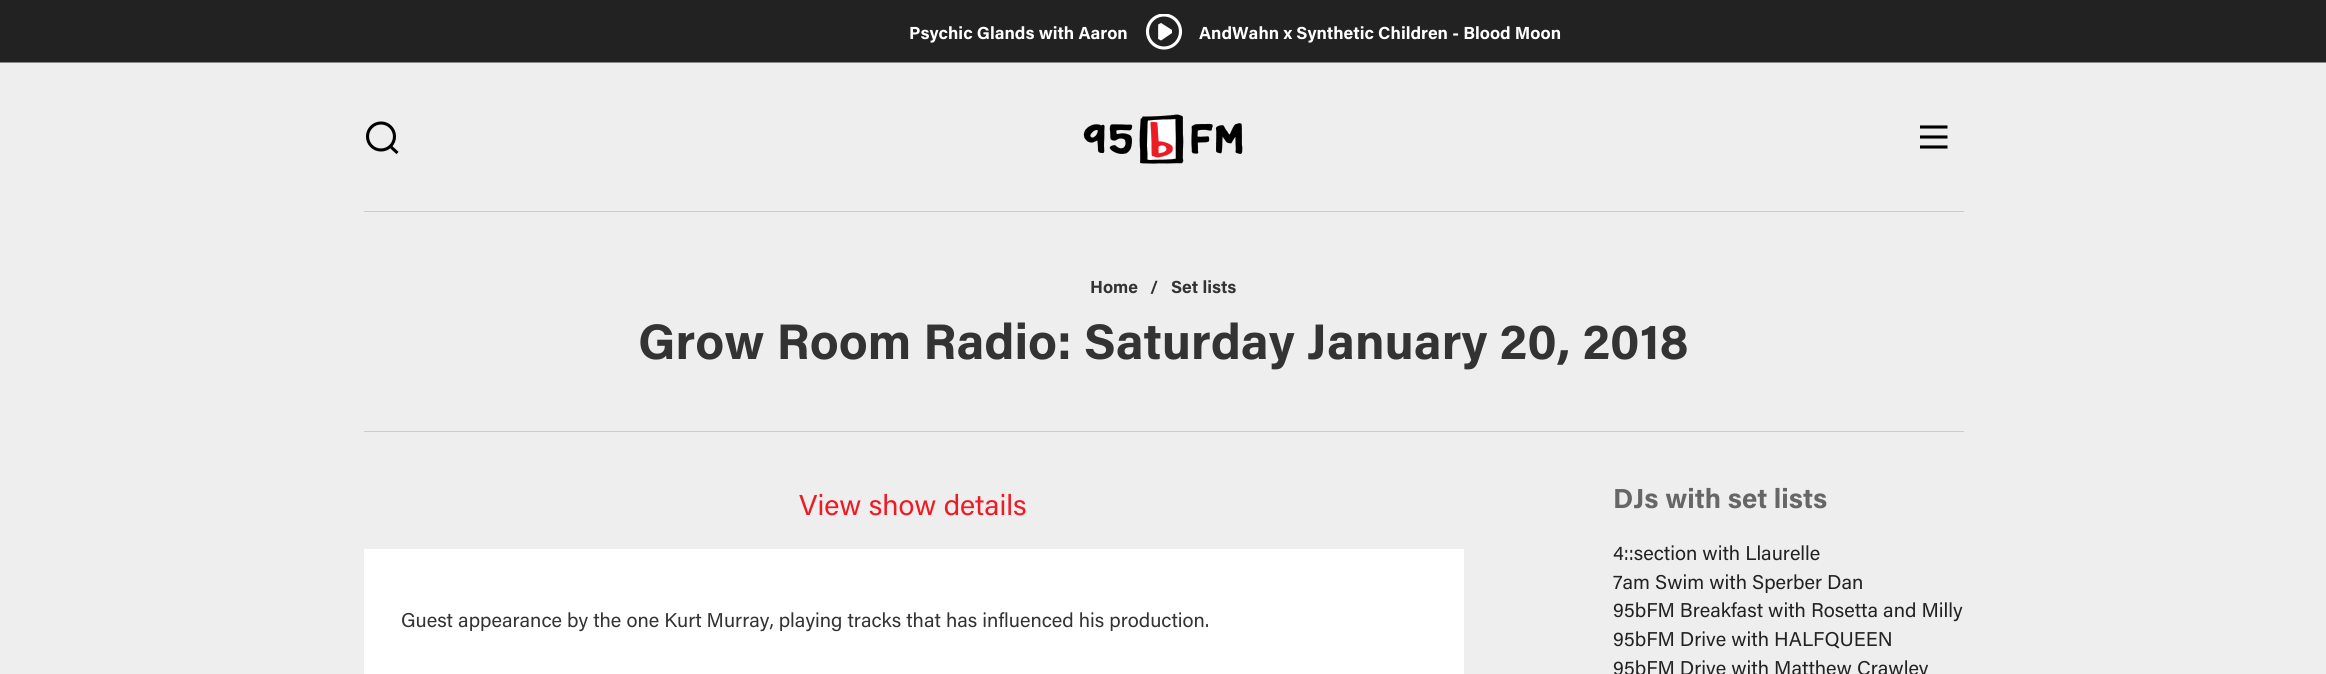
#include <cairo/cairo.h>
#include <math.h>
#include <stddef.h>

typedef struct { double x, y; const char *s; } line_t;
typedef struct { double x, y, w, h; unsigned color; } box_t;
static cairo_t *cr;

static void rgb(unsigned color)
{
	cairo_set_source_rgb(cr, (color >> 16) / 255.0, (color >> 8 & 255) / 255.0, (color & 255) / 255.0);
}

static void image(const char *path, double x, double y, double w, double h)
{
	cairo_surface_t *image = cairo_image_surface_create_from_png(path);
	cairo_save(cr);
	cairo_set_source_surface(cr, image, x, y);
	cairo_rectangle(cr, x, y, w, h);
	cairo_fill(cr);
	cairo_restore(cr);
	cairo_surface_destroy(image);
}

int main(void) {
	cairo_surface_t *surface = cairo_image_surface_create(CAIRO_FORMAT_RGB24, 2326, 674);
	cr = cairo_create(surface);
	cairo_font_options_t *options = cairo_font_options_create();
	cairo_font_options_set_hint_metrics(options, CAIRO_HINT_METRICS_OFF);
	cairo_font_options_set_hint_style(options, CAIRO_HINT_STYLE_NONE);
	cairo_set_font_options(cr, options);
	cairo_set_miter_limit(cr, 4);
	rgb(0x222222);
	cairo_paint(cr);
	rgb(0xffffff);
	cairo_new_path(cr);
	cairo_move_to(cr, 1160, 24.5);
	cairo_line_to(cr, 1160, 39);
	cairo_line_to(cr, 1171, 31.5);
	cairo_close_path(cr);
	cairo_fill_preserve(cr);
	cairo_set_line_width(cr, 3.7);
	cairo_set_line_cap(cr, CAIRO_LINE_CAP_ROUND);
	cairo_set_line_join(cr, CAIRO_LINE_JOIN_BEVEL);
	cairo_stroke(cr);
	cairo_save(cr);
	cairo_rectangle(cr, 1145, 14, 38, 36);
	cairo_clip(cr);
	cairo_arc(cr, 1164, 31.5, 16.5, 0, 2 * M_PI);
	cairo_set_line_width(cr, 3.1);
	cairo_set_line_cap(cr, CAIRO_LINE_CAP_BUTT);
	cairo_set_line_join(cr, CAIRO_LINE_JOIN_MITER);
	cairo_stroke(cr);
	cairo_restore(cr);
	rgb(0xeeeeee);
	cairo_rectangle(cr, 0, 63, 2326, 611);
	cairo_fill(cr);
	rgb(0x888888);
	cairo_rectangle(cr, 0, 62, 2326, 1);
	cairo_fill(cr);
	cairo_arc(cr, 381, 136.5, 13.5, 0, 2 * M_PI);
	rgb(0x000000);
	cairo_set_line_width(cr, 3.1);
	cairo_set_line_cap(cr, CAIRO_LINE_CAP_BUTT);
	cairo_set_line_join(cr, CAIRO_LINE_JOIN_MITER);
	cairo_stroke(cr);
	cairo_new_path(cr);
	cairo_move_to(cr, 390.5, 146.5);
	cairo_line_to(cr, 397.5, 153);
	cairo_stroke(cr);
	image("img/1.png", 1083, 114, 160, 50);
	cairo_new_path(cr);
	cairo_move_to(cr, 1920, 137);
	cairo_line_to(cr, 1947.5, 137);
	cairo_move_to(cr, 1920, 127);
	cairo_line_to(cr, 1947.5, 127);
	cairo_move_to(cr, 1920, 147);
	cairo_line_to(cr, 1947.5, 147);
	cairo_stroke(cr);
	{
		static const box_t items[] = {
			{364, 211, 1600, 1, 0xcccccc},
			{364, 549, 1100, 125, 0xffffff},
			{364, 431, 1600, 1, 0xcccccc},
		};
		for (size_t i = 0; i < sizeof items / sizeof *items; i++) {
			rgb(items[i].color);
			cairo_rectangle(cr, items[i].x, items[i].y, items[i].w, items[i].h);
			cairo_fill(cr);
		}
	}
	cairo_select_font_face(cr, "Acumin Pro", CAIRO_FONT_SLANT_NORMAL, CAIRO_FONT_WEIGHT_BOLD);
	cairo_set_font_size(cr, 17.5);
	rgb(0xffffff);
	cairo_move_to(cr, 909, 39);
	cairo_show_text(cr, "Psychic Glands with Aaron");
	cairo_move_to(cr, 1199, 39);
	cairo_show_text(cr, "AndWahn x Synthetic Children - Blood Moon");
	rgb(0x333333);
	{
		static const line_t items[] = {
			{1090, 293, "Home"},
			{1150, 293, "/"},
			{1171, 293, "Set lists"},
		};
		for (size_t i = 0; i < sizeof items / sizeof *items; i++) {
			cairo_move_to(cr, items[i].x, items[i].y);
			cairo_show_text(cr, items[i].s);
		}
	}
	cairo_set_font_size(cr, 50);
	cairo_move_to(cr, 638, 359);
	cairo_show_text(cr, "Grow Room Radio: Saturday January 20, 2018");
	cairo_select_font_face(cr, "Acumin Pro", CAIRO_FONT_SLANT_NORMAL, CAIRO_FONT_WEIGHT_NORMAL);
	cairo_set_font_size(cr, 28.75);
	rgb(0xed1c24);
	cairo_move_to(cr, 799, 515);
	cairo_show_text(cr, "View show details");
	cairo_set_font_size(cr, 20);
	rgb(0x333333);
	cairo_move_to(cr, 401, 627);
	cairo_show_text(cr, "Guest appearance by the one Kurt Murray, playing tracks that has influenced his production.");
	cairo_select_font_face(cr, "Acumin Pro", CAIRO_FONT_SLANT_NORMAL, CAIRO_FONT_WEIGHT_BOLD);
	cairo_set_font_size(cr, 27.5);
	rgb(0x666666);
	cairo_move_to(cr, 1613, 508);
	cairo_show_text(cr, "DJs with set lists");
	cairo_select_font_face(cr, "Acumin Pro", CAIRO_FONT_SLANT_NORMAL, CAIRO_FONT_WEIGHT_NORMAL);
	cairo_set_font_size(cr, 20);
	rgb(0x222222);
	{
		static const line_t items[] = {
			{1613, 560, "4::section with Llaurelle"},
			{1613, 589, "7am Swim with Sperber Dan"},
			{1613, 617, "95bFM Breakfast with Rosetta and Milly"},
			{1613, 646, "95bFM Drive with HALFQUEEN"},
			{1613, 675, "95bFM Drive with Matthew Crawley"},
		};
		for (size_t i = 0; i < sizeof items / sizeof *items; i++) {
			cairo_move_to(cr, items[i].x, items[i].y);
			cairo_show_text(cr, items[i].s);
		}
	}
	cairo_surface_write_to_png(surface, "page.png");
	cairo_font_options_destroy(options);
	cairo_destroy(cr);
	cairo_surface_destroy(surface);
	return 0;
}
